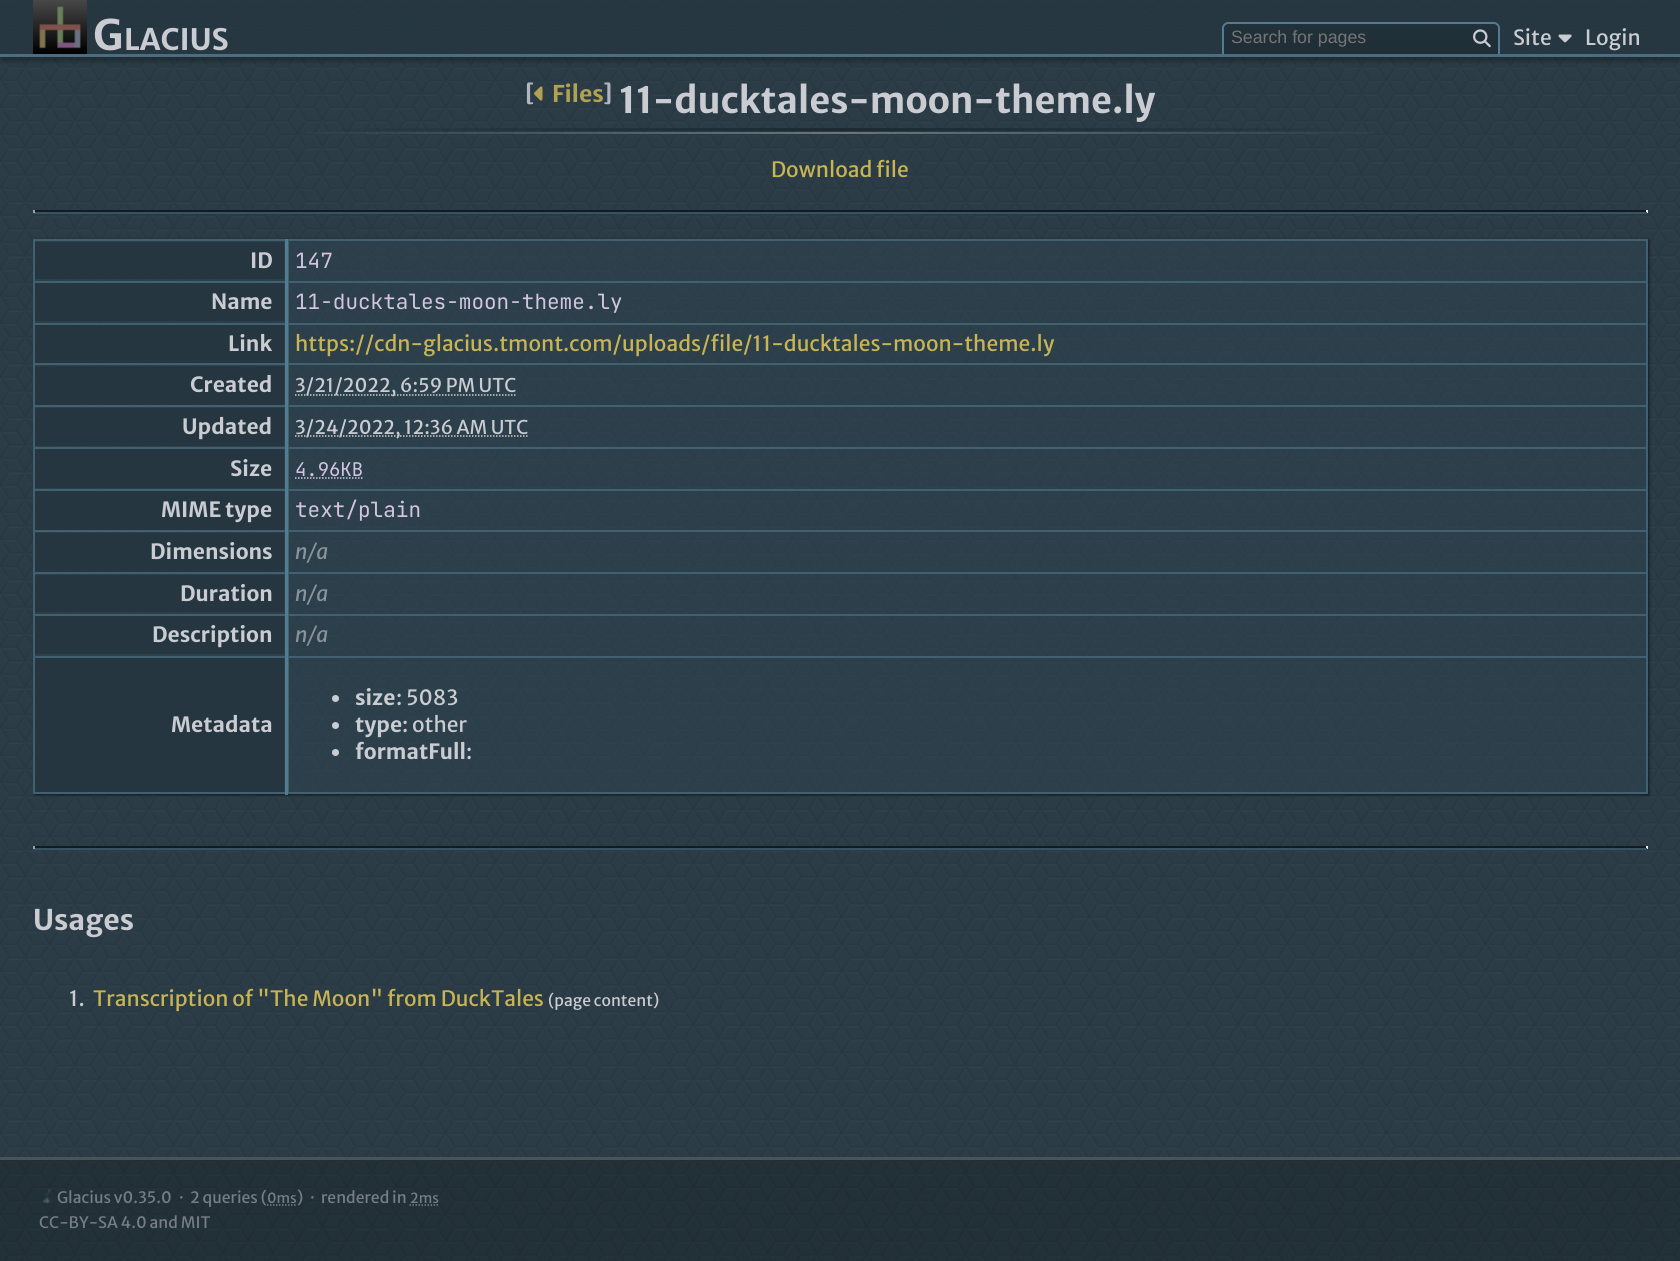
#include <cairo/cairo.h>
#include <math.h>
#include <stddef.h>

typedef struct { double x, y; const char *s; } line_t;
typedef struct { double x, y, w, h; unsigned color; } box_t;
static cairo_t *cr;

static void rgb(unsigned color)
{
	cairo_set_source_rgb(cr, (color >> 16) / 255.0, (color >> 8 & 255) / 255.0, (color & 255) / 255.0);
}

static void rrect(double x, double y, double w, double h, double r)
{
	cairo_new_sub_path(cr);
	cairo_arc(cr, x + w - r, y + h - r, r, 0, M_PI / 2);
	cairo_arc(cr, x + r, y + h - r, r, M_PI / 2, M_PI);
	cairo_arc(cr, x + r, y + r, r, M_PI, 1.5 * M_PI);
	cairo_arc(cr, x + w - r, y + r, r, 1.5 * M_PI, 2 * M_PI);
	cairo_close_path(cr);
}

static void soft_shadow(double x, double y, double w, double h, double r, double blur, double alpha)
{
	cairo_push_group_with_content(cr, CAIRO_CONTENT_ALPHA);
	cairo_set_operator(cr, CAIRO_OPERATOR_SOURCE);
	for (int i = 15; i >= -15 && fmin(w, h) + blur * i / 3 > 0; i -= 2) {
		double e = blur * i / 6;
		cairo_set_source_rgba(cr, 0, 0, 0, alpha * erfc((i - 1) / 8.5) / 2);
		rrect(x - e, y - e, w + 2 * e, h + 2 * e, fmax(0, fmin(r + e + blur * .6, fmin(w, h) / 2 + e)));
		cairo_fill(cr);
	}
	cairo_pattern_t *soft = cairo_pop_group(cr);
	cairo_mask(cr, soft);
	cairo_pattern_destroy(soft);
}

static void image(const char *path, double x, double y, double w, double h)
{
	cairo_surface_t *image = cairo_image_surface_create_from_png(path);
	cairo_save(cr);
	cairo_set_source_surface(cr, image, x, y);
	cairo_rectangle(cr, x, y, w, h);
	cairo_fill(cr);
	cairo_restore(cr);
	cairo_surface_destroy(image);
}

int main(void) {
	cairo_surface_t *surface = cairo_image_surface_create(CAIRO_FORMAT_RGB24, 1680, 1261);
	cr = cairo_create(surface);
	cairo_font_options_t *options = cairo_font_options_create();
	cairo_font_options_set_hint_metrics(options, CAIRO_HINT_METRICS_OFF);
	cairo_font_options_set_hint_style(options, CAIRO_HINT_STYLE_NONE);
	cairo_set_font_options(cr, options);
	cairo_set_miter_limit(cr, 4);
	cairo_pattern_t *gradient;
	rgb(0x2e4450);
	cairo_paint(cr);
	image("img/1.png", 0, 0, 1680, 1261);
	cairo_save(cr);
	cairo_rectangle(cr, 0, 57, 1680, 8);
	cairo_clip(cr);
	rgb(0x000000);
	soft_shadow(0, 5, 1680, 57, 0, 2, 0.25);
	cairo_restore(cr);
	cairo_set_source_rgba(cr, 0.145, 0.212, 0.251, 0.75);
	cairo_rectangle(cr, 0, 0, 1680, 54);
	cairo_fill(cr);
	rgb(0x4a6d81);
	cairo_rectangle(cr, 0, 54, 1680, 3);
	cairo_fill(cr);
	image("img/2.png", 33, 0, 54, 54);
	cairo_save(cr);
	cairo_new_path(cr);
	cairo_move_to(cr, 1229, 23);
	cairo_line_to(cr, 1494, 23);
	cairo_curve_to(cr, 1497.5, 23, 1500, 25.5, 1500, 29);
	cairo_line_to(cr, 1500, 54);
	cairo_line_to(cr, 1223, 54);
	cairo_line_to(cr, 1223, 29);
	cairo_curve_to(cr, 1223, 25.5, 1225.5, 23, 1229, 23);
	cairo_close_path(cr);
	cairo_clip(cr);
	gradient = cairo_pattern_create_linear(1361, 24, 1361, 54);
	cairo_pattern_add_color_stop_rgba(gradient, 0, 0.129, 0.192, 0.224, 1);
	cairo_pattern_add_color_stop_rgba(gradient, 1, 0.122, 0.18, 0.212, 1);
	cairo_set_source(cr, gradient);
	cairo_pattern_destroy(gradient);
	cairo_rectangle(cr, 1224, 24, 276, 30);
	cairo_fill(cr);
	cairo_restore(cr);
	rgb(0x537b91);
	cairo_set_fill_rule(cr, CAIRO_FILL_RULE_EVEN_ODD);
	cairo_new_path(cr);
	cairo_move_to(cr, 1228, 22);
	cairo_line_to(cr, 1494, 22);
	cairo_curve_to(cr, 1497, 22, 1500, 25, 1500, 28);
	cairo_line_to(cr, 1500, 54);
	cairo_line_to(cr, 1222, 54);
	cairo_line_to(cr, 1222, 28);
	cairo_curve_to(cr, 1222, 25, 1225, 22, 1228, 22);
	cairo_close_path(cr);
	cairo_move_to(cr, 1228, 24);
	cairo_line_to(cr, 1494, 24);
	cairo_curve_to(cr, 1496, 24, 1498, 26, 1498, 28);
	cairo_line_to(cr, 1498, 54);
	cairo_line_to(cr, 1224, 54);
	cairo_line_to(cr, 1224, 28);
	cairo_curve_to(cr, 1224, 26, 1226, 24, 1228, 24);
	cairo_close_path(cr);
	cairo_fill(cr);
	image("img/3.png", 1473, 29, 18, 19);
	image("img/4.png", 1558, 34, 14, 9);
	image("img/5.png", 534, 86, 9, 15);
	gradient = cairo_pattern_create_linear(33, 129, 1647, 129);
	cairo_pattern_add_color_stop_rgba(gradient, 0.15, 0.106, 0.157, 0.188, 0);
	cairo_pattern_add_color_stop_rgba(gradient, 0.5, 0.106, 0.157, 0.188, 0.9);
	cairo_pattern_add_color_stop_rgba(gradient, 0.85, 0.106, 0.157, 0.188, 0);
	cairo_set_source(cr, gradient);
	cairo_pattern_destroy(gradient);
	cairo_rectangle(cr, 341, 128, 996, 3);
	cairo_fill(cr);
	gradient = cairo_pattern_create_linear(33, 133, 1647, 133);
	cairo_pattern_add_color_stop_rgba(gradient, 0.15, 0.792, 0.8, 0.824, 0);
	cairo_pattern_add_color_stop_rgba(gradient, 0.5, 0.792, 0.8, 0.824, 0.4);
	cairo_pattern_add_color_stop_rgba(gradient, 0.85, 0.792, 0.8, 0.824, 0);
	cairo_set_source(cr, gradient);
	cairo_pattern_destroy(gradient);
	cairo_rectangle(cr, 306, 132, 1068, 2);
	cairo_fill(cr);
	{
		static const box_t items[] = {
			{33, 210, 1614, 2, 0x121b1f},
			{1646, 210, 2, 3, 0xeeeeee},
			{33, 212, 1614, 2, 0x375260},
			{33, 210, 2, 3, 0x9f9f9f},
		};
		for (size_t i = 0; i < sizeof items / sizeof *items; i++) {
			rgb(items[i].color);
			cairo_rectangle(cr, items[i].x, items[i].y, items[i].w, items[i].h);
			cairo_fill(cr);
		}
	}
	cairo_save(cr);
	cairo_new_path(cr);
	cairo_move_to(cr, 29, 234);
	cairo_line_to(cr, 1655, 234);
	cairo_line_to(cr, 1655, 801);
	cairo_line_to(cr, 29, 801);
	cairo_close_path(cr);
	cairo_move_to(cr, 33, 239);
	cairo_line_to(cr, 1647, 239);
	cairo_line_to(cr, 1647, 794);
	cairo_line_to(cr, 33, 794);
	cairo_close_path(cr);
	cairo_clip(cr);
	rgb(0x000000);
	soft_shadow(35, 240, 1614, 555, 0, 1.5, 0.6);
	cairo_restore(cr);
	cairo_set_source_rgba(cr, 0.18, 0.267, 0.314, 0.5);
	cairo_rectangle(cr, 35, 241, 1611, 551);
	cairo_fill(cr);
	rgb(0x253640);
	cairo_rectangle(cr, 35, 242, 249, 37);
	cairo_fill(cr);
	rgb(0x416070);
	cairo_rectangle(cr, 33, 239, 1614, 2);
	cairo_fill(cr);
	cairo_rectangle(cr, 33, 281, 1614, 2);
	cairo_fill(cr);
	cairo_rectangle(cr, 33, 323, 1614, 2);
	cairo_fill(cr);
	cairo_rectangle(cr, 33, 363, 1614, 2);
	cairo_fill(cr);
	cairo_rectangle(cr, 33, 405, 1614, 2);
	cairo_fill(cr);
	cairo_rectangle(cr, 33, 447, 1614, 2);
	cairo_fill(cr);
	cairo_rectangle(cr, 33, 489, 1614, 2);
	cairo_fill(cr);
	cairo_rectangle(cr, 33, 530, 1614, 2);
	cairo_fill(cr);
	cairo_rectangle(cr, 33, 572, 1614, 2);
	cairo_fill(cr);
	cairo_rectangle(cr, 33, 614, 1614, 2);
	cairo_fill(cr);
	cairo_rectangle(cr, 33, 656, 1614, 2);
	cairo_fill(cr);
	cairo_rectangle(cr, 1646, 656, 2, 138);
	cairo_fill(cr);
	cairo_rectangle(cr, 33, 792, 1614, 2);
	cairo_fill(cr);
	cairo_rectangle(cr, 33, 656, 2, 138);
	cairo_fill(cr);
	cairo_rectangle(cr, 33, 614, 2, 43);
	cairo_fill(cr);
	cairo_rectangle(cr, 33, 572, 2, 43);
	cairo_fill(cr);
	cairo_rectangle(cr, 33, 530, 2, 43);
	cairo_fill(cr);
	cairo_rectangle(cr, 33, 489, 2, 42);
	cairo_fill(cr);
	cairo_rectangle(cr, 33, 447, 2, 44);
	cairo_fill(cr);
	cairo_rectangle(cr, 33, 405, 2, 44);
	cairo_fill(cr);
	cairo_rectangle(cr, 33, 363, 2, 44);
	cairo_fill(cr);
	cairo_rectangle(cr, 33, 323, 2, 42);
	cairo_fill(cr);
	cairo_rectangle(cr, 33, 281, 2, 43);
	cairo_fill(cr);
	cairo_rectangle(cr, 33, 239, 2, 43);
	cairo_fill(cr);
	cairo_rectangle(cr, 1646, 614, 2, 43);
	cairo_fill(cr);
	cairo_rectangle(cr, 1646, 572, 2, 43);
	cairo_fill(cr);
	cairo_rectangle(cr, 1646, 530, 2, 43);
	cairo_fill(cr);
	cairo_rectangle(cr, 1646, 489, 2, 42);
	cairo_fill(cr);
	cairo_rectangle(cr, 1646, 447, 2, 44);
	cairo_fill(cr);
	cairo_rectangle(cr, 1646, 405, 2, 44);
	cairo_fill(cr);
	cairo_rectangle(cr, 1646, 363, 2, 44);
	cairo_fill(cr);
	cairo_rectangle(cr, 1646, 323, 2, 42);
	cairo_fill(cr);
	cairo_rectangle(cr, 1646, 281, 2, 43);
	cairo_fill(cr);
	cairo_rectangle(cr, 1646, 239, 2, 43);
	cairo_fill(cr);
	cairo_rectangle(cr, 288, 656, 1, 138);
	cairo_fill(cr);
	cairo_rectangle(cr, 288, 614, 1, 43);
	cairo_fill(cr);
	cairo_rectangle(cr, 288, 572, 1, 43);
	cairo_fill(cr);
	cairo_rectangle(cr, 288, 530, 1, 43);
	cairo_fill(cr);
	cairo_rectangle(cr, 288, 489, 1, 42);
	cairo_fill(cr);
	cairo_rectangle(cr, 288, 447, 1, 44);
	cairo_fill(cr);
	cairo_rectangle(cr, 288, 405, 1, 44);
	cairo_fill(cr);
	cairo_rectangle(cr, 288, 363, 1, 44);
	cairo_fill(cr);
	cairo_rectangle(cr, 288, 323, 1, 42);
	cairo_fill(cr);
	cairo_rectangle(cr, 288, 281, 1, 43);
	cairo_fill(cr);
	cairo_rectangle(cr, 288, 239, 1, 43);
	cairo_fill(cr);
	rgb(0x253640);
	cairo_rectangle(cr, 35, 283, 249, 38);
	cairo_fill(cr);
	cairo_rectangle(cr, 35, 325, 249, 38);
	cairo_fill(cr);
	cairo_rectangle(cr, 35, 366, 249, 39);
	cairo_fill(cr);
	cairo_new_path(cr);
	cairo_move_to(cr, 295, 395);
	cairo_line_to(cr, 516.5, 395);
	rgb(0xcaccd2);
	cairo_set_line_width(cr, 1.5);
	cairo_set_dash(cr, (double[]){1.5, 1.5}, 2, 0);
	cairo_stroke(cr);
	rgb(0x253640);
	cairo_rectangle(cr, 35, 408, 249, 38);
	cairo_fill(cr);
	cairo_new_path(cr);
	cairo_move_to(cr, 295, 436);
	cairo_line_to(cr, 528.5, 436);
	rgb(0xcaccd2);
	cairo_stroke(cr);
	rgb(0x253640);
	cairo_rectangle(cr, 35, 449, 249, 39);
	cairo_fill(cr);
	cairo_new_path(cr);
	cairo_move_to(cr, 295, 478);
	cairo_line_to(cr, 363.5, 478);
	rgb(0xd5c4df);
	cairo_stroke(cr);
	{
		static const box_t items[] = {
			{35, 491, 249, 39, 0x253640},
			{35, 533, 249, 39, 0x253640},
			{35, 575, 249, 37, 0x253640},
			{35, 616, 249, 38, 0x253640},
			{35, 658, 249, 134, 0x253640},
			{285, 239, 3, 556, 0x537b91},
		};
		for (size_t i = 0; i < sizeof items / sizeof *items; i++) {
			rgb(items[i].color);
			cairo_rectangle(cr, items[i].x, items[i].y, items[i].w, items[i].h);
			cairo_fill(cr);
		}
	}
	rgb(0xcaccd2);
	cairo_arc(cr, 335.5, 698.5, 3.5, 0, 2 * M_PI);
	cairo_fill(cr);
	cairo_arc(cr, 335.5, 725.5, 3.5, 0, 2 * M_PI);
	cairo_fill(cr);
	cairo_arc(cr, 335.5, 752.5, 3.5, 0, 2 * M_PI);
	cairo_fill(cr);
	rgb(0x121b1f);
	cairo_rectangle(cr, 33, 846, 1614, 2);
	cairo_fill(cr);
	rgb(0xeeeeee);
	cairo_rectangle(cr, 1646, 846, 2, 3);
	cairo_fill(cr);
	rgb(0x375260);
	cairo_rectangle(cr, 33, 848, 1614, 2);
	cairo_fill(cr);
	rgb(0x9f9f9f);
	cairo_rectangle(cr, 33, 846, 2, 3);
	cairo_fill(cr);
	cairo_set_source_rgba(cr, 0.043, 0.047, 0.051, 0.25);
	cairo_rectangle(cr, 0, 1157, 1680, 104);
	cairo_fill(cr);
	cairo_set_source_rgba(cr, 0.369, 0.404, 0.424, 0.65);
	cairo_rectangle(cr, 0, 1157, 1680, 3);
	cairo_fill(cr);
	image("img/6.png", 42, 1188, 9, 15);
	cairo_new_path(cr);
	cairo_move_to(cr, 267, 1205);
	cairo_line_to(cr, 297, 1205);
	cairo_set_source_rgba(cr, 0.576, 0.592, 0.639, 0.75);
	cairo_stroke(cr);
	cairo_new_path(cr);
	cairo_move_to(cr, 409.5, 1205);
	cairo_line_to(cr, 439, 1205);
	rgb(0x777d88);
	cairo_stroke(cr);
	cairo_select_font_face(cr, "Merriweather Sans", CAIRO_FONT_SLANT_NORMAL, CAIRO_FONT_WEIGHT_BOLD);
	cairo_set_font_size(cr, 42);
	rgb(0xcaccd2);
	cairo_move_to(cr, 93, 50);
	cairo_show_text(cr, "G");
	cairo_set_font_size(cr, 29.5);
	cairo_move_to(cr, 124, 50);
	cairo_show_text(cr, "LACIUS");
	cairo_select_font_face(cr, "Liberation Sans", CAIRO_FONT_SLANT_NORMAL, CAIRO_FONT_WEIGHT_NORMAL);
	cairo_set_font_size(cr, 17.75);
	rgb(0x757575);
	cairo_move_to(cr, 1231, 43);
	cairo_show_text(cr, "Search for pages");
	cairo_select_font_face(cr, "Merriweather Sans", CAIRO_FONT_SLANT_NORMAL, CAIRO_FONT_WEIGHT_NORMAL);
	cairo_set_font_size(cr, 21);
	rgb(0xcaccd2);
	cairo_move_to(cr, 1513, 45);
	cairo_show_text(cr, "Site");
	cairo_move_to(cr, 1585, 45);
	cairo_show_text(cr, "Login");
	cairo_select_font_face(cr, "Merriweather Sans", CAIRO_FONT_SLANT_NORMAL, CAIRO_FONT_WEIGHT_BOLD);
	cairo_set_font_size(cr, 23);
	rgb(0xb2b6bd);
	cairo_move_to(cr, 525, 102);
	cairo_show_text(cr, "[");
	rgb(0xb1a253);
	cairo_move_to(cr, 552, 102);
	cairo_show_text(cr, "Files");
	rgb(0xb2b6bd);
	cairo_move_to(cr, 603, 102);
	cairo_show_text(cr, "]");
	cairo_set_font_size(cr, 36.25);
	rgb(0xcaccd2);
	cairo_move_to(cr, 619, 113);
	cairo_show_text(cr, "11-ducktales-moon-theme.ly");
	cairo_select_font_face(cr, "Merriweather Sans", CAIRO_FONT_SLANT_NORMAL, CAIRO_FONT_WEIGHT_NORMAL);
	cairo_set_font_size(cr, 21);
	rgb(0xc9b455);
	cairo_move_to(cr, 771, 177);
	cairo_show_text(cr, "Download file");
	cairo_select_font_face(cr, "Merriweather Sans", CAIRO_FONT_SLANT_NORMAL, CAIRO_FONT_WEIGHT_BOLD);
	rgb(0xcaccd2);
	cairo_move_to(cr, 250, 268);
	cairo_show_text(cr, "ID");
	cairo_select_font_face(cr, "JetBrains Mono", CAIRO_FONT_SLANT_NORMAL, CAIRO_FONT_WEIGHT_NORMAL);
	rgb(0xd5c4df);
	cairo_move_to(cr, 295, 268);
	cairo_show_text(cr, "147");
	cairo_select_font_face(cr, "Merriweather Sans", CAIRO_FONT_SLANT_NORMAL, CAIRO_FONT_WEIGHT_BOLD);
	rgb(0xcaccd2);
	cairo_move_to(cr, 211, 309);
	cairo_show_text(cr, "Name");
	cairo_select_font_face(cr, "JetBrains Mono", CAIRO_FONT_SLANT_NORMAL, CAIRO_FONT_WEIGHT_NORMAL);
	rgb(0xd5c4df);
	cairo_move_to(cr, 295, 309);
	cairo_show_text(cr, "11-ducktales-moon-theme.ly");
	cairo_select_font_face(cr, "Merriweather Sans", CAIRO_FONT_SLANT_NORMAL, CAIRO_FONT_WEIGHT_BOLD);
	rgb(0xcaccd2);
	cairo_move_to(cr, 228, 351);
	cairo_show_text(cr, "Link");
	cairo_select_font_face(cr, "Merriweather Sans", CAIRO_FONT_SLANT_NORMAL, CAIRO_FONT_WEIGHT_NORMAL);
	rgb(0xc9b455);
	cairo_move_to(cr, 295, 351);
	cairo_show_text(cr, "https://cdn-glacius.tmont.com/uploads/file/11-ducktales-moon-theme.ly");
	cairo_select_font_face(cr, "Merriweather Sans", CAIRO_FONT_SLANT_NORMAL, CAIRO_FONT_WEIGHT_BOLD);
	rgb(0xcaccd2);
	cairo_move_to(cr, 190, 392);
	cairo_show_text(cr, "Created");
	cairo_select_font_face(cr, "Merriweather Sans", CAIRO_FONT_SLANT_NORMAL, CAIRO_FONT_WEIGHT_NORMAL);
	cairo_set_font_size(cr, 18.9);
	cairo_move_to(cr, 295, 392);
	cairo_show_text(cr, "3/21/2022, 6:59 PM UTC");
	cairo_select_font_face(cr, "Merriweather Sans", CAIRO_FONT_SLANT_NORMAL, CAIRO_FONT_WEIGHT_BOLD);
	cairo_set_font_size(cr, 21);
	cairo_move_to(cr, 182, 434);
	cairo_show_text(cr, "Updated");
	cairo_select_font_face(cr, "Merriweather Sans", CAIRO_FONT_SLANT_NORMAL, CAIRO_FONT_WEIGHT_NORMAL);
	cairo_set_font_size(cr, 18.9);
	cairo_move_to(cr, 295, 434);
	cairo_show_text(cr, "3/24/2022, 12:36 AM UTC");
	cairo_select_font_face(cr, "Merriweather Sans", CAIRO_FONT_SLANT_NORMAL, CAIRO_FONT_WEIGHT_BOLD);
	cairo_set_font_size(cr, 21);
	cairo_move_to(cr, 230, 476);
	cairo_show_text(cr, "Size");
	cairo_select_font_face(cr, "JetBrains Mono", CAIRO_FONT_SLANT_NORMAL, CAIRO_FONT_WEIGHT_NORMAL);
	cairo_set_font_size(cr, 18.9);
	rgb(0xd5c4df);
	cairo_move_to(cr, 295, 476);
	cairo_show_text(cr, "4.96KB");
	cairo_select_font_face(cr, "Merriweather Sans", CAIRO_FONT_SLANT_NORMAL, CAIRO_FONT_WEIGHT_BOLD);
	cairo_set_font_size(cr, 21);
	rgb(0xcaccd2);
	cairo_move_to(cr, 161, 517);
	cairo_show_text(cr, "MIME type");
	cairo_select_font_face(cr, "JetBrains Mono", CAIRO_FONT_SLANT_NORMAL, CAIRO_FONT_WEIGHT_NORMAL);
	rgb(0xd5c4df);
	cairo_move_to(cr, 295, 517);
	cairo_show_text(cr, "text/plain");
	cairo_select_font_face(cr, "Merriweather Sans", CAIRO_FONT_SLANT_NORMAL, CAIRO_FONT_WEIGHT_BOLD);
	rgb(0xcaccd2);
	cairo_move_to(cr, 150, 559);
	cairo_show_text(cr, "Dimensions");
	cairo_select_font_face(cr, "Merriweather Sans", CAIRO_FONT_SLANT_ITALIC, CAIRO_FONT_WEIGHT_NORMAL);
	rgb(0x8b949c);
	cairo_move_to(cr, 295, 559);
	cairo_show_text(cr, "n/a");
	cairo_select_font_face(cr, "Merriweather Sans", CAIRO_FONT_SLANT_NORMAL, CAIRO_FONT_WEIGHT_BOLD);
	rgb(0xcaccd2);
	cairo_move_to(cr, 180, 601);
	cairo_show_text(cr, "Duration");
	cairo_select_font_face(cr, "Merriweather Sans", CAIRO_FONT_SLANT_ITALIC, CAIRO_FONT_WEIGHT_NORMAL);
	rgb(0x8b949c);
	cairo_move_to(cr, 295, 601);
	cairo_show_text(cr, "n/a");
	cairo_select_font_face(cr, "Merriweather Sans", CAIRO_FONT_SLANT_NORMAL, CAIRO_FONT_WEIGHT_BOLD);
	rgb(0xcaccd2);
	cairo_move_to(cr, 152, 642);
	cairo_show_text(cr, "Description");
	cairo_select_font_face(cr, "Merriweather Sans", CAIRO_FONT_SLANT_ITALIC, CAIRO_FONT_WEIGHT_NORMAL);
	rgb(0x8b949c);
	cairo_move_to(cr, 295, 642);
	cairo_show_text(cr, "n/a");
	cairo_select_font_face(cr, "Merriweather Sans", CAIRO_FONT_SLANT_NORMAL, CAIRO_FONT_WEIGHT_BOLD);
	rgb(0xcaccd2);
	cairo_move_to(cr, 171, 732);
	cairo_show_text(cr, "Metadata");
	cairo_move_to(cr, 355, 705);
	cairo_show_text(cr, "size");
	cairo_select_font_face(cr, "Merriweather Sans", CAIRO_FONT_SLANT_NORMAL, CAIRO_FONT_WEIGHT_NORMAL);
	cairo_move_to(cr, 396, 705);
	cairo_show_text(cr, ": 5083");
	cairo_select_font_face(cr, "Merriweather Sans", CAIRO_FONT_SLANT_NORMAL, CAIRO_FONT_WEIGHT_BOLD);
	cairo_move_to(cr, 355, 732);
	cairo_show_text(cr, "type");
	cairo_select_font_face(cr, "Merriweather Sans", CAIRO_FONT_SLANT_NORMAL, CAIRO_FONT_WEIGHT_NORMAL);
	cairo_move_to(cr, 402, 732);
	cairo_show_text(cr, ": other");
	cairo_select_font_face(cr, "Merriweather Sans", CAIRO_FONT_SLANT_NORMAL, CAIRO_FONT_WEIGHT_BOLD);
	cairo_move_to(cr, 355, 759);
	cairo_show_text(cr, "formatFull");
	cairo_select_font_face(cr, "Merriweather Sans", CAIRO_FONT_SLANT_NORMAL, CAIRO_FONT_WEIGHT_NORMAL);
	cairo_move_to(cr, 466, 759);
	cairo_show_text(cr, ":");
	cairo_select_font_face(cr, "Merriweather Sans", CAIRO_FONT_SLANT_NORMAL, CAIRO_FONT_WEIGHT_BOLD);
	cairo_set_font_size(cr, 28.5);
	cairo_move_to(cr, 33, 930);
	cairo_show_text(cr, "Usages");
	cairo_select_font_face(cr, "Merriweather Sans", CAIRO_FONT_SLANT_NORMAL, CAIRO_FONT_WEIGHT_NORMAL);
	cairo_set_font_size(cr, 21);
	cairo_move_to(cr, 69, 1006);
	cairo_show_text(cr, "1.");
	rgb(0xc9b455);
	cairo_move_to(cr, 93, 1006);
	cairo_show_text(cr, "Transcription of \"The Moon\" from DuckTales");
	cairo_set_font_size(cr, 15.75);
	rgb(0xcaccd2);
	cairo_move_to(cr, 548, 1006);
	cairo_show_text(cr, "(page content)");
	rgb(0x777d88);
	{
		static const line_t items[] = {
			{57, 1203, "Glacius v0.35.0"},
			{179, 1203, "·"},
			{190, 1203, "2 queries ("},
		};
		for (size_t i = 0; i < sizeof items / sizeof *items; i++) {
			cairo_move_to(cr, items[i].x, items[i].y);
			cairo_show_text(cr, items[i].s);
		}
	}
	cairo_set_font_size(cr, 14);
	cairo_move_to(cr, 267, 1203);
	cairo_show_text(cr, "0ms");
	cairo_set_font_size(cr, 15.75);
	{
		static const line_t items[] = {
			{297, 1203, ")"},
			{310, 1203, "·"},
			{321, 1203, "rendered in"},
		};
		for (size_t i = 0; i < sizeof items / sizeof *items; i++) {
			cairo_move_to(cr, items[i].x, items[i].y);
			cairo_show_text(cr, items[i].s);
		}
	}
	cairo_set_font_size(cr, 14);
	cairo_move_to(cr, 410, 1203);
	cairo_show_text(cr, "2ms");
	cairo_set_font_size(cr, 15.75);
	cairo_move_to(cr, 39, 1228);
	cairo_show_text(cr, "CC-BY-SA 4.0 and MIT");
	cairo_surface_write_to_png(surface, "page.png");
	cairo_font_options_destroy(options);
	cairo_destroy(cr);
	cairo_surface_destroy(surface);
	return 0;
}
